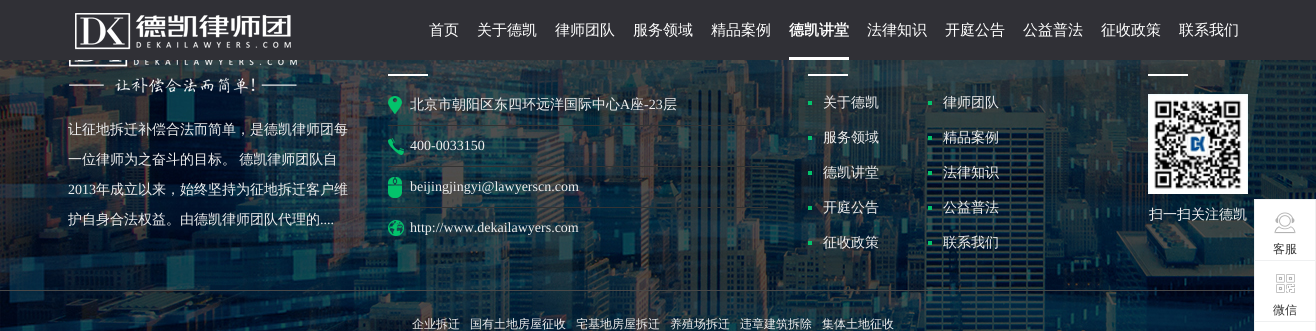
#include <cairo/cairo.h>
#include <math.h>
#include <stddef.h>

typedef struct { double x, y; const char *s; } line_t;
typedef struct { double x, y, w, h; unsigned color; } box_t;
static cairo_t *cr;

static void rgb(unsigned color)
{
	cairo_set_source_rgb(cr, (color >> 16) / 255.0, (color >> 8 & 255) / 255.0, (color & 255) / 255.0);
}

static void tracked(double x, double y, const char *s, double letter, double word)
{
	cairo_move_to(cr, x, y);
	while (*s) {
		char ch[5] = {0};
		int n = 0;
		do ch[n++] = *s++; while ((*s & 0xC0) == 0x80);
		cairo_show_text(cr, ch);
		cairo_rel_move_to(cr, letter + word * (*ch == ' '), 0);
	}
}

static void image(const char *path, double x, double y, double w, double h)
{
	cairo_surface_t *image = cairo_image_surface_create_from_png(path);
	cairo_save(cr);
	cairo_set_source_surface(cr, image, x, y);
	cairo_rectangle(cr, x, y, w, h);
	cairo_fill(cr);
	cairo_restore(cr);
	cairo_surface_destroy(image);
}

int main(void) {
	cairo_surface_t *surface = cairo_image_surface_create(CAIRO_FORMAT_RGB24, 1316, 331);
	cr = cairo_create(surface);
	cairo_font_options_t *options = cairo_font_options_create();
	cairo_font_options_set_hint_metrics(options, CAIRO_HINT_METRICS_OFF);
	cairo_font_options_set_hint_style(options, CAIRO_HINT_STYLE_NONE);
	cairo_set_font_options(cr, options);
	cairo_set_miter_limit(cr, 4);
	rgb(0xffffff);
	cairo_paint(cr);
	rgb(0x303036);
	cairo_rectangle(cr, 0, 0, 1316, 60);
	cairo_fill(cr);
	image("img/1.png", 75, 13, 216, 37);
	rgb(0xffffff);
	cairo_rectangle(cr, 789, 57, 60, 3);
	cairo_fill(cr);
	image("img/4.png", 0, 60, 1316, 271);
	cairo_rectangle(cr, 1254.5, 199.5, 61, 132);
	rgb(0xeff0f1);
	cairo_set_line_width(cr, 1);
	cairo_stroke(cr);
	rgb(0xffffff);
	cairo_rectangle(cr, 1255, 200, 60, 60);
	cairo_fill(cr);
	rgb(0xeff0f1);
	cairo_rectangle(cr, 1255, 260, 60, 1);
	cairo_fill(cr);
	image("img/2.png", 1274, 212, 22, 22);
	rgb(0xffffff);
	cairo_rectangle(cr, 1255, 261, 60, 60);
	cairo_fill(cr);
	rgb(0xeff0f1);
	cairo_rectangle(cr, 1255, 321, 60, 1);
	cairo_fill(cr);
	image("img/3.png", 1276, 274, 19, 19);
	rgb(0xffffff);
	cairo_rectangle(cr, 1255, 322, 60, 9);
	cairo_fill(cr);
	image("img/5.png", 69, 60, 228, 34);
	cairo_rectangle(cr, 388, 74, 40, 2);
	cairo_fill(cr);
	image("img/6.png", 388, 96, 14, 18);
	rgb(0x333333);
	cairo_rectangle(cr, 388, 125, 380, 1);
	cairo_fill(cr);
	image("img/7.png", 388, 138, 16, 17);
	cairo_rectangle(cr, 388, 166, 380, 1);
	cairo_fill(cr);
	image("img/8.png", 388, 177, 14, 21);
	cairo_rectangle(cr, 388, 207, 380, 1);
	cairo_fill(cr);
	image("img/9.png", 388, 220, 16, 16);
	{
		static const box_t items[] = {
			{808, 74, 40, 2, 0xffffff},
			{808, 101, 4, 4, 0x03c36b},
			{928, 101, 4, 4, 0x03c36b},
			{808, 136, 4, 4, 0x03c36b},
			{928, 136, 4, 4, 0x03c36b},
			{808, 171, 4, 4, 0x03c36b},
			{928, 171, 4, 4, 0x03c36b},
			{808, 206, 4, 4, 0x03c36b},
			{928, 206, 4, 4, 0x03c36b},
			{808, 241, 4, 4, 0x03c36b},
			{928, 241, 4, 4, 0x03c36b},
			{1148, 74, 40, 2, 0xffffff},
		};
		for (size_t i = 0; i < sizeof items / sizeof *items; i++) {
			rgb(items[i].color);
			cairo_rectangle(cr, items[i].x, items[i].y, items[i].w, items[i].h);
			cairo_fill(cr);
		}
	}
	image("img/10.png", 1148, 94, 100, 100);
	rgb(0x484848);
	cairo_rectangle(cr, 0, 290, 1254, 1);
	cairo_fill(cr);
	cairo_select_font_face(cr, "WenQuanYi Zen Hei Medium", CAIRO_FONT_SLANT_NORMAL, CAIRO_FONT_WEIGHT_NORMAL);
	cairo_set_font_size(cr, 15);
	rgb(0xffffff);
	{
		static const line_t items[] = {
			{429, 35, "首页"},
			{477, 35, "关于德凯"},
			{555, 35, "律师团队"},
			{633, 35, "服务领域"},
			{711, 35, "精品案例"},
		};
		for (size_t i = 0; i < sizeof items / sizeof *items; i++) {
			cairo_move_to(cr, items[i].x, items[i].y);
			cairo_show_text(cr, items[i].s);
		}
	}
	cairo_select_font_face(cr, "WenQuanYi Zen Hei", CAIRO_FONT_SLANT_NORMAL, CAIRO_FONT_WEIGHT_BOLD);
	cairo_move_to(cr, 789, 35);
	cairo_show_text(cr, "德凯讲堂");
	cairo_select_font_face(cr, "WenQuanYi Zen Hei Medium", CAIRO_FONT_SLANT_NORMAL, CAIRO_FONT_WEIGHT_NORMAL);
	{
		static const line_t items[] = {
			{867, 35, "法律知识"},
			{945, 35, "开庭公告"},
			{1023, 35, "公益普法"},
			{1101, 35, "征收政策"},
			{1179, 35, "联系我们"},
		};
		for (size_t i = 0; i < sizeof items / sizeof *items; i++) {
			cairo_move_to(cr, items[i].x, items[i].y);
			cairo_show_text(cr, items[i].s);
		}
	}
	cairo_set_font_size(cr, 12);
	rgb(0x333333);
	cairo_move_to(cr, 1273, 253);
	cairo_show_text(cr, "客服");
	cairo_move_to(cr, 1273, 314);
	cairo_show_text(cr, "微信");
	cairo_set_font_size(cr, 14);
	rgb(0xeeeeee);
	cairo_move_to(cr, 68, 134);
	cairo_show_text(cr, "让征地拆迁补偿合法而简单，是德凯律师团每");
	tracked(68, 164, "一位律师为之奋斗的目标。 德凯律师团队自", 0, -1);
	cairo_select_font_face(cr, "Liberation Serif", CAIRO_FONT_SLANT_NORMAL, CAIRO_FONT_WEIGHT_NORMAL);
	cairo_move_to(cr, 68, 194);
	cairo_show_text(cr, "2013");
	cairo_select_font_face(cr, "WenQuanYi Zen Hei Medium", CAIRO_FONT_SLANT_NORMAL, CAIRO_FONT_WEIGHT_NORMAL);
	cairo_move_to(cr, 96, 194);
	cairo_show_text(cr, "年成立以来，始终坚持为征地拆迁客户维");
	cairo_move_to(cr, 68, 224);
	cairo_show_text(cr, "护自身合法权益。由德凯律师团队代理的");
	cairo_select_font_face(cr, "Liberation Serif", CAIRO_FONT_SLANT_NORMAL, CAIRO_FONT_WEIGHT_NORMAL);
	cairo_move_to(cr, 320, 224);
	cairo_show_text(cr, "....");
	cairo_select_font_face(cr, "WenQuanYi Zen Hei Medium", CAIRO_FONT_SLANT_NORMAL, CAIRO_FONT_WEIGHT_NORMAL);
	cairo_move_to(cr, 410, 109);
	cairo_show_text(cr, "北京市朝阳区东四环远洋国际中心");
	cairo_select_font_face(cr, "Liberation Serif", CAIRO_FONT_SLANT_NORMAL, CAIRO_FONT_WEIGHT_NORMAL);
	cairo_move_to(cr, 620, 109);
	cairo_show_text(cr, "A");
	cairo_select_font_face(cr, "WenQuanYi Zen Hei Medium", CAIRO_FONT_SLANT_NORMAL, CAIRO_FONT_WEIGHT_NORMAL);
	cairo_move_to(cr, 630, 109);
	cairo_show_text(cr, "座");
	cairo_select_font_face(cr, "Liberation Serif", CAIRO_FONT_SLANT_NORMAL, CAIRO_FONT_WEIGHT_NORMAL);
	cairo_move_to(cr, 644, 109);
	cairo_show_text(cr, "-23");
	cairo_select_font_face(cr, "WenQuanYi Zen Hei Medium", CAIRO_FONT_SLANT_NORMAL, CAIRO_FONT_WEIGHT_NORMAL);
	cairo_move_to(cr, 663, 109);
	cairo_show_text(cr, "层");
	cairo_select_font_face(cr, "Liberation Serif", CAIRO_FONT_SLANT_NORMAL, CAIRO_FONT_WEIGHT_NORMAL);
	{
		static const line_t items[] = {
			{410, 150, "400-0033150"},
			{410, 191, "beijingjingyi@lawyerscn.com"},
			{410, 232, "http://www.dekailawyers.com"},
		};
		for (size_t i = 0; i < sizeof items / sizeof *items; i++) {
			cairo_move_to(cr, items[i].x, items[i].y);
			cairo_show_text(cr, items[i].s);
		}
	}
	cairo_select_font_face(cr, "WenQuanYi Zen Hei Medium", CAIRO_FONT_SLANT_NORMAL, CAIRO_FONT_WEIGHT_NORMAL);
	{
		static const line_t items[] = {
			{823, 107, "关于德凯"},
			{943, 107, "律师团队"},
			{823, 142, "服务领域"},
			{943, 142, "精品案例"},
			{823, 177, "德凯讲堂"},
			{943, 177, "法律知识"},
			{823, 212, "开庭公告"},
			{943, 212, "公益普法"},
			{823, 247, "征收政策"},
			{943, 247, "联系我们"},
			{1149, 219, "扫一扫关注德凯"},
		};
		for (size_t i = 0; i < sizeof items / sizeof *items; i++) {
			cairo_move_to(cr, items[i].x, items[i].y);
			cairo_show_text(cr, items[i].s);
		}
	}
	cairo_set_font_size(cr, 12);
	{
		static const line_t items[] = {
			{412, 328, "企业拆迁"},
			{470, 328, "国有土地房屋征收"},
			{576, 328, "宅基地房屋拆迁"},
			{670, 328, "养殖场拆迁"},
			{740, 328, "违章建筑拆除"},
			{822, 328, "集体土地征收"},
		};
		for (size_t i = 0; i < sizeof items / sizeof *items; i++) {
			cairo_move_to(cr, items[i].x, items[i].y);
			cairo_show_text(cr, items[i].s);
		}
	}
	cairo_surface_write_to_png(surface, "page.png");
	cairo_font_options_destroy(options);
	cairo_destroy(cr);
	cairo_surface_destroy(surface);
	return 0;
}
